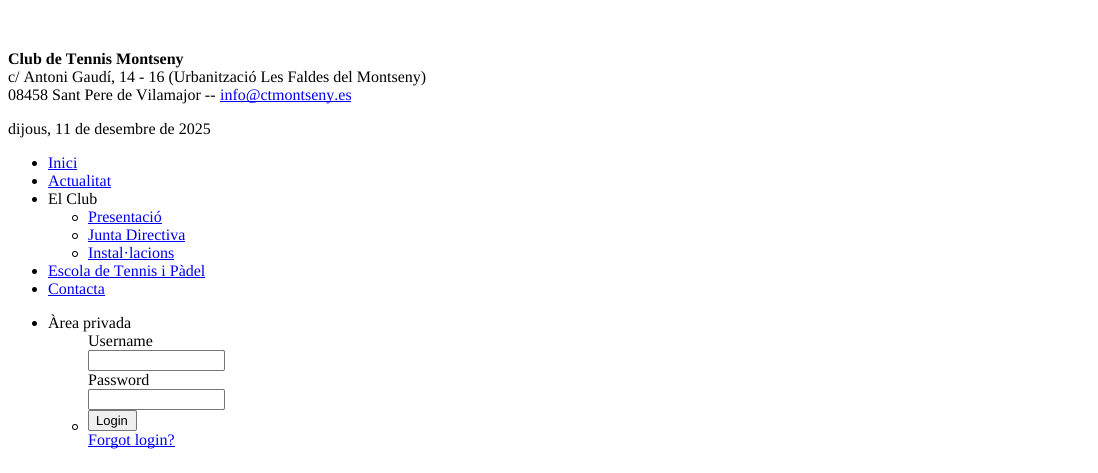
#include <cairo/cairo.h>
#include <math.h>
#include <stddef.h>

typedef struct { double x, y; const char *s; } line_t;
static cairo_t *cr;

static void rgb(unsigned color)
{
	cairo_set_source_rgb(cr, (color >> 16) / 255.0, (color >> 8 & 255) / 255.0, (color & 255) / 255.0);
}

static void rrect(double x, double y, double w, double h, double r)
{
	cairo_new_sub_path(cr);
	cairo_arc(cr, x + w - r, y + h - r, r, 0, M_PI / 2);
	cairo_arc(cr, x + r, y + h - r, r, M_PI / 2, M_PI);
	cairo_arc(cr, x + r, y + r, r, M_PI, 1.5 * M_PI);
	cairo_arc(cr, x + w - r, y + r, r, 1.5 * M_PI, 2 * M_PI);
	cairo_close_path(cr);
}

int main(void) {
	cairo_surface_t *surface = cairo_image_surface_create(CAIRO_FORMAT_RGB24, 1098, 473);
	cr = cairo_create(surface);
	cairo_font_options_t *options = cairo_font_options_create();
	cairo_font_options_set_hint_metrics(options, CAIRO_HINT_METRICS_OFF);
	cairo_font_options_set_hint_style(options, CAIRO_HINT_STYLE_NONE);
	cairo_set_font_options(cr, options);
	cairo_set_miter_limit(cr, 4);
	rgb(0xffffff);
	cairo_paint(cr);
	rgb(0x0000ee);
	cairo_rectangle(cr, 220, 101, 131, 1);
	cairo_fill(cr);
	rgb(0x000000);
	cairo_arc(cr, 34.5, 163.5, 2.5, 0, 2 * M_PI);
	cairo_fill(cr);
	rgb(0x0000ee);
	cairo_rectangle(cr, 48, 169, 29, 1);
	cairo_fill(cr);
	rgb(0x000000);
	cairo_arc(cr, 34.5, 181.5, 2.5, 0, 2 * M_PI);
	cairo_fill(cr);
	rgb(0x0000ee);
	cairo_rectangle(cr, 48, 187, 63, 1);
	cairo_fill(cr);
	rgb(0x000000);
	cairo_arc(cr, 34.5, 199.5, 2.5, 0, 2 * M_PI);
	cairo_fill(cr);
	cairo_arc(cr, 75, 218, 2.5, 0, 2 * M_PI);
	cairo_set_line_width(cr, 1);
	cairo_stroke(cr);
	rgb(0x0000ee);
	cairo_rectangle(cr, 88, 223, 74, 1);
	cairo_fill(cr);
	cairo_arc(cr, 75, 236, 2.5, 0, 2 * M_PI);
	rgb(0x000000);
	cairo_stroke(cr);
	rgb(0x0000ee);
	cairo_rectangle(cr, 88, 241, 97, 1);
	cairo_fill(cr);
	cairo_arc(cr, 75, 254, 2.5, 0, 2 * M_PI);
	rgb(0x000000);
	cairo_stroke(cr);
	rgb(0x0000ee);
	cairo_rectangle(cr, 88, 259, 86, 1);
	cairo_fill(cr);
	rgb(0x000000);
	cairo_arc(cr, 34.5, 271.5, 2.5, 0, 2 * M_PI);
	cairo_fill(cr);
	rgb(0x0000ee);
	cairo_rectangle(cr, 48, 277, 157, 1);
	cairo_fill(cr);
	rgb(0x000000);
	cairo_arc(cr, 34.5, 289.5, 2.5, 0, 2 * M_PI);
	cairo_fill(cr);
	rgb(0x0000ee);
	cairo_rectangle(cr, 48, 295, 57, 1);
	cairo_fill(cr);
	rgb(0x000000);
	cairo_arc(cr, 34.5, 323.5, 2.5, 0, 2 * M_PI);
	cairo_fill(cr);
	cairo_arc(cr, 75, 427, 2.5, 0, 2 * M_PI);
	cairo_stroke(cr);
	rrect(88.5, 350.5, 136, 20, 1.5);
	rgb(0x767676);
	cairo_stroke(cr);
	rrect(88.5, 389.5, 136, 20, 1.5);
	cairo_stroke(cr);
	rgb(0xefefef);
	rrect(88.5, 410.5, 48, 20, 1.5);
	cairo_fill_preserve(cr);
	rgb(0x767676);
	cairo_stroke(cr);
	rgb(0x0000ee);
	cairo_rectangle(cr, 88, 446, 87, 1);
	cairo_fill(cr);
	cairo_select_font_face(cr, "Liberation Serif", CAIRO_FONT_SLANT_NORMAL, CAIRO_FONT_WEIGHT_BOLD);
	cairo_set_font_size(cr, 16);
	rgb(0x000000);
	cairo_move_to(cr, 8, 64);
	cairo_show_text(cr, "Club de Tennis Montseny");
	cairo_select_font_face(cr, "Liberation Serif", CAIRO_FONT_SLANT_NORMAL, CAIRO_FONT_WEIGHT_NORMAL);
	cairo_move_to(cr, 8, 82);
	cairo_show_text(cr, "c/ Antoni Gaudí, 14 - 16 (Urbanització Les Faldes del Montseny)");
	cairo_move_to(cr, 8, 100);
	cairo_show_text(cr, "08458 Sant Pere de Vilamajor --");
	rgb(0x0000ee);
	cairo_move_to(cr, 220, 100);
	cairo_show_text(cr, "info@ctmontseny.es");
	rgb(0x000000);
	cairo_move_to(cr, 8, 134);
	cairo_show_text(cr, "dijous, 11 de desembre de 2025");
	rgb(0x0000ee);
	cairo_move_to(cr, 48, 168);
	cairo_show_text(cr, "Inici");
	cairo_move_to(cr, 48, 186);
	cairo_show_text(cr, "Actualitat");
	rgb(0x000000);
	cairo_move_to(cr, 48, 204);
	cairo_show_text(cr, "El Club");
	rgb(0x0000ee);
	{
		static const line_t items[] = {
			{88, 222, "Presentació"},
			{88, 240, "Junta Directiva"},
			{88, 258, "Instal·lacions"},
			{48, 276, "Escola de Tennis i Pàdel"},
			{48, 294, "Contacta"},
		};
		for (size_t i = 0; i < sizeof items / sizeof *items; i++) {
			cairo_move_to(cr, items[i].x, items[i].y);
			cairo_show_text(cr, items[i].s);
		}
	}
	rgb(0x000000);
	{
		static const line_t items[] = {
			{48, 328, "Àrea privada"},
			{88, 346, "Username"},
			{88, 385, "Password"},
		};
		for (size_t i = 0; i < sizeof items / sizeof *items; i++) {
			cairo_move_to(cr, items[i].x, items[i].y);
			cairo_show_text(cr, items[i].s);
		}
	}
	cairo_select_font_face(cr, "Liberation Sans", CAIRO_FONT_SLANT_NORMAL, CAIRO_FONT_WEIGHT_NORMAL);
	cairo_set_font_size(cr, 13);
	cairo_move_to(cr, 96, 425);
	cairo_show_text(cr, "Login");
	cairo_select_font_face(cr, "Liberation Serif", CAIRO_FONT_SLANT_NORMAL, CAIRO_FONT_WEIGHT_NORMAL);
	cairo_set_font_size(cr, 16);
	rgb(0x0000ee);
	cairo_move_to(cr, 88, 445);
	cairo_show_text(cr, "Forgot login?");
	cairo_surface_write_to_png(surface, "page.png");
	cairo_font_options_destroy(options);
	cairo_destroy(cr);
	cairo_surface_destroy(surface);
	return 0;
}
